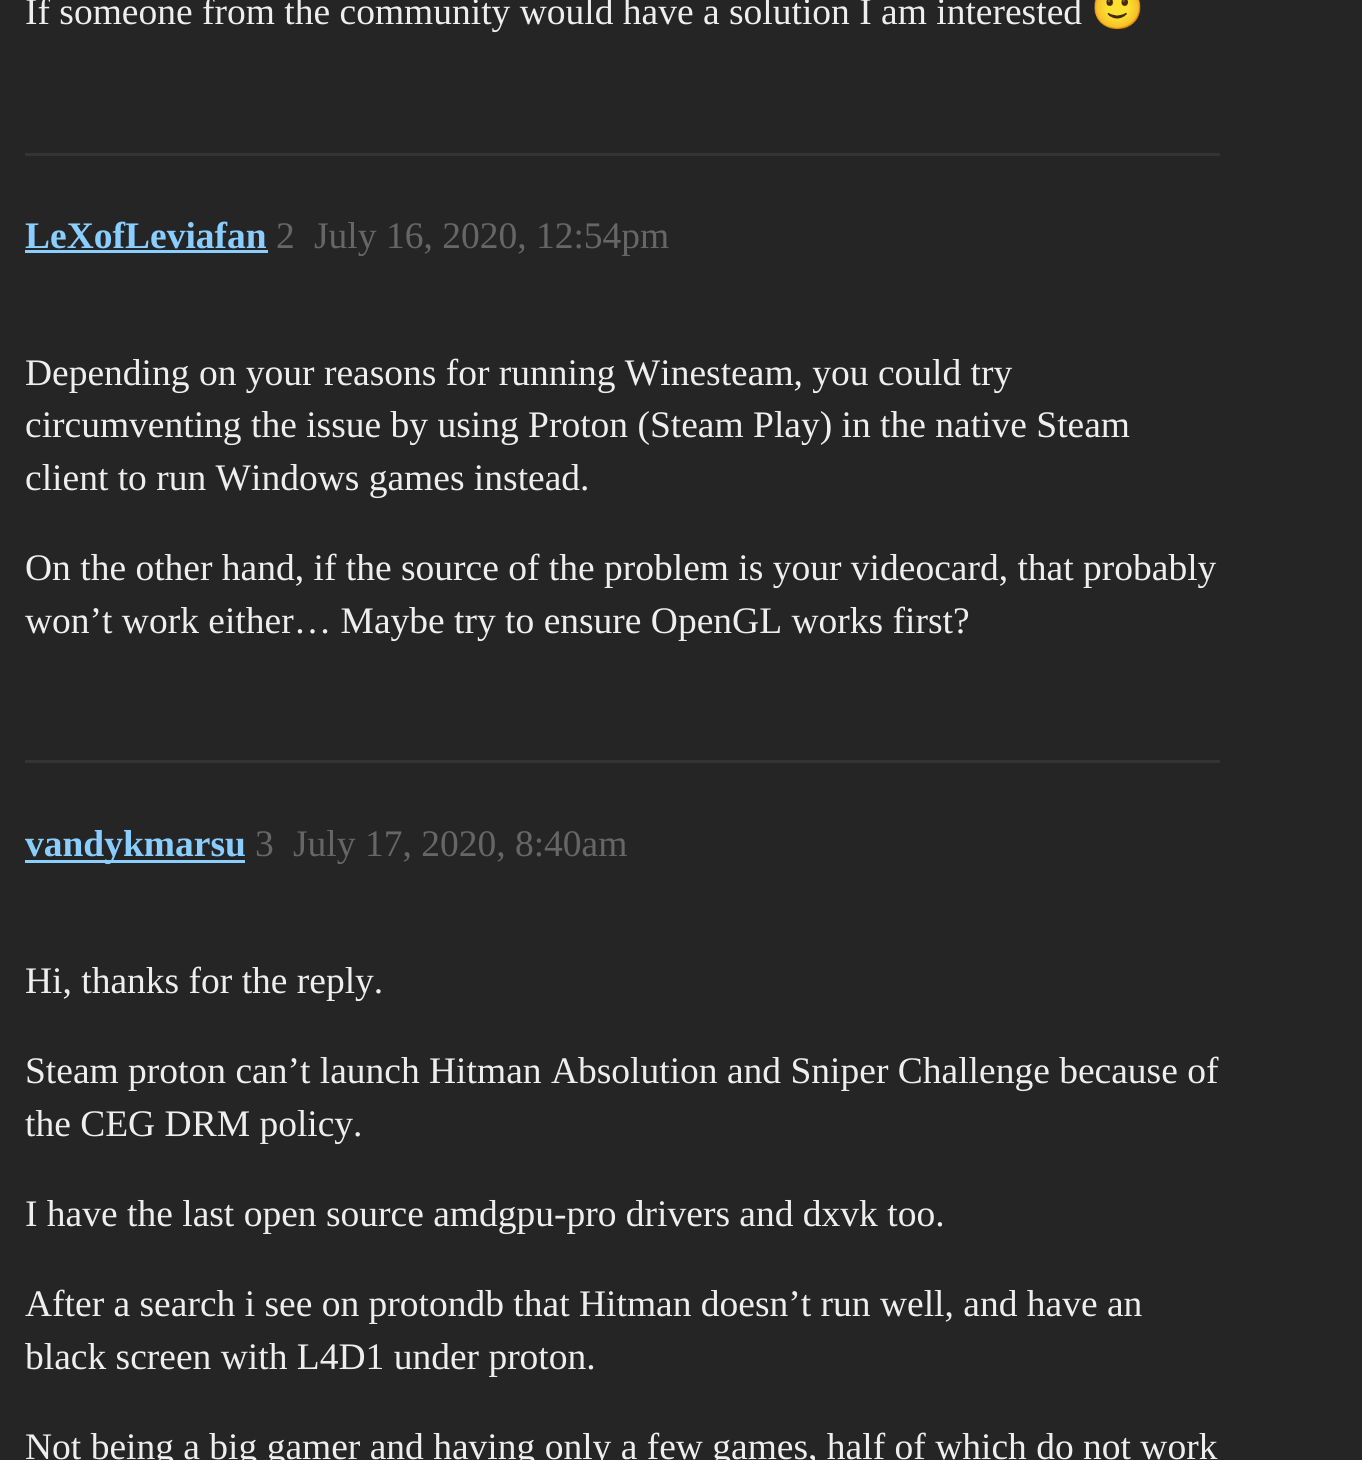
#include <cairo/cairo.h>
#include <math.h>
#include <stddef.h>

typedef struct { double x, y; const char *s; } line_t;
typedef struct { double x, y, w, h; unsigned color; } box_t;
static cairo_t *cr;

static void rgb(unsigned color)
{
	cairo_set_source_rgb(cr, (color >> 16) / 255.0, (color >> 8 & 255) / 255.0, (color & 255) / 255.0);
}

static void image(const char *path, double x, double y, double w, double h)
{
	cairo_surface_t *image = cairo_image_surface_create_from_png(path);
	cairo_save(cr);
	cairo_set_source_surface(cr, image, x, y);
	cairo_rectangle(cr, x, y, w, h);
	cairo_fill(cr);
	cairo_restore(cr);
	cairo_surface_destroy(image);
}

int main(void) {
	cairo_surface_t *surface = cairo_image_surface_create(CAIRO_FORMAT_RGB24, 1362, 1460);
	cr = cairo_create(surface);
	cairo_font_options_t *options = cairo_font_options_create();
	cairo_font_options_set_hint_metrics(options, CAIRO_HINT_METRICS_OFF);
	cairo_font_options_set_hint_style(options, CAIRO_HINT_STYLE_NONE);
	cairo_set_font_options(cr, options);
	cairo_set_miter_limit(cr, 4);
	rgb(0x252525);
	cairo_paint(cr);
	image("img/1.png", 1094, 0, 47, 29);
	{
		static const box_t items[] = {
			{25, 153, 1195, 3, 0x343434},
			{25, 250, 243, 3, 0x8aceff},
			{25, 760, 1195, 3, 0x343434},
			{25, 860, 220, 3, 0x8aceff},
		};
		for (size_t i = 0; i < sizeof items / sizeof *items; i++) {
			rgb(items[i].color);
			cairo_rectangle(cr, items[i].x, items[i].y, items[i].w, items[i].h);
			cairo_fill(cr);
		}
	}
	cairo_select_font_face(cr, "Liberation Serif", CAIRO_FONT_SLANT_NORMAL, CAIRO_FONT_WEIGHT_NORMAL);
	cairo_set_font_size(cr, 37.5);
	rgb(0xeeeeee);
	cairo_move_to(cr, 25, 24);
	cairo_show_text(cr, "If someone from the community would have a solution I am interested");
	cairo_select_font_face(cr, "Liberation Serif", CAIRO_FONT_SLANT_NORMAL, CAIRO_FONT_WEIGHT_BOLD);
	rgb(0x8aceff);
	cairo_move_to(cr, 25, 248);
	cairo_show_text(cr, "LeXofLeviafan");
	cairo_select_font_face(cr, "Liberation Serif", CAIRO_FONT_SLANT_NORMAL, CAIRO_FONT_WEIGHT_NORMAL);
	rgb(0x666666);
	cairo_move_to(cr, 276, 248);
	cairo_show_text(cr, "2");
	cairo_move_to(cr, 314, 248);
	cairo_show_text(cr, "July 16, 2020, 12:54pm");
	rgb(0xeeeeee);
	{
		static const line_t items[] = {
			{25, 385, "Depending on your reasons for running Winesteam, you could try"},
			{25, 437, "circumventing the issue by using Proton (Steam Play) in the native Steam"},
			{25, 490, "client to run Windows games instead."},
			{25, 580, "On the other hand, if the source of the problem is your videocard, that probably"},
			{25, 633, "won’t work either… Maybe try to ensure OpenGL works first?"},
		};
		for (size_t i = 0; i < sizeof items / sizeof *items; i++) {
			cairo_move_to(cr, items[i].x, items[i].y);
			cairo_show_text(cr, items[i].s);
		}
	}
	cairo_select_font_face(cr, "Liberation Serif", CAIRO_FONT_SLANT_NORMAL, CAIRO_FONT_WEIGHT_BOLD);
	rgb(0x8aceff);
	cairo_move_to(cr, 25, 856);
	cairo_show_text(cr, "vandykmarsu");
	cairo_select_font_face(cr, "Liberation Serif", CAIRO_FONT_SLANT_NORMAL, CAIRO_FONT_WEIGHT_NORMAL);
	rgb(0x666666);
	cairo_move_to(cr, 255, 856);
	cairo_show_text(cr, "3");
	cairo_move_to(cr, 293, 856);
	cairo_show_text(cr, "July 17, 2020, 8:40am");
	rgb(0xeeeeee);
	{
		static const line_t items[] = {
			{25, 993, "Hi, thanks for the reply."},
			{25, 1083, "Steam proton can’t launch Hitman Absolution and Sniper Challenge because of"},
			{25, 1136, "the CEG DRM policy."},
			{25, 1226, "I have the last open source amdgpu-pro drivers and dxvk too."},
			{25, 1316, "After a search i see on protondb that Hitman doesn’t run well, and have an"},
			{25, 1369, "black screen with L4D1 under proton."},
			{25, 1459, "Not being a big gamer and having only a few games, half of which do not work"},
		};
		for (size_t i = 0; i < sizeof items / sizeof *items; i++) {
			cairo_move_to(cr, items[i].x, items[i].y);
			cairo_show_text(cr, items[i].s);
		}
	}
	cairo_surface_write_to_png(surface, "page.png");
	cairo_font_options_destroy(options);
	cairo_destroy(cr);
	cairo_surface_destroy(surface);
	return 0;
}
